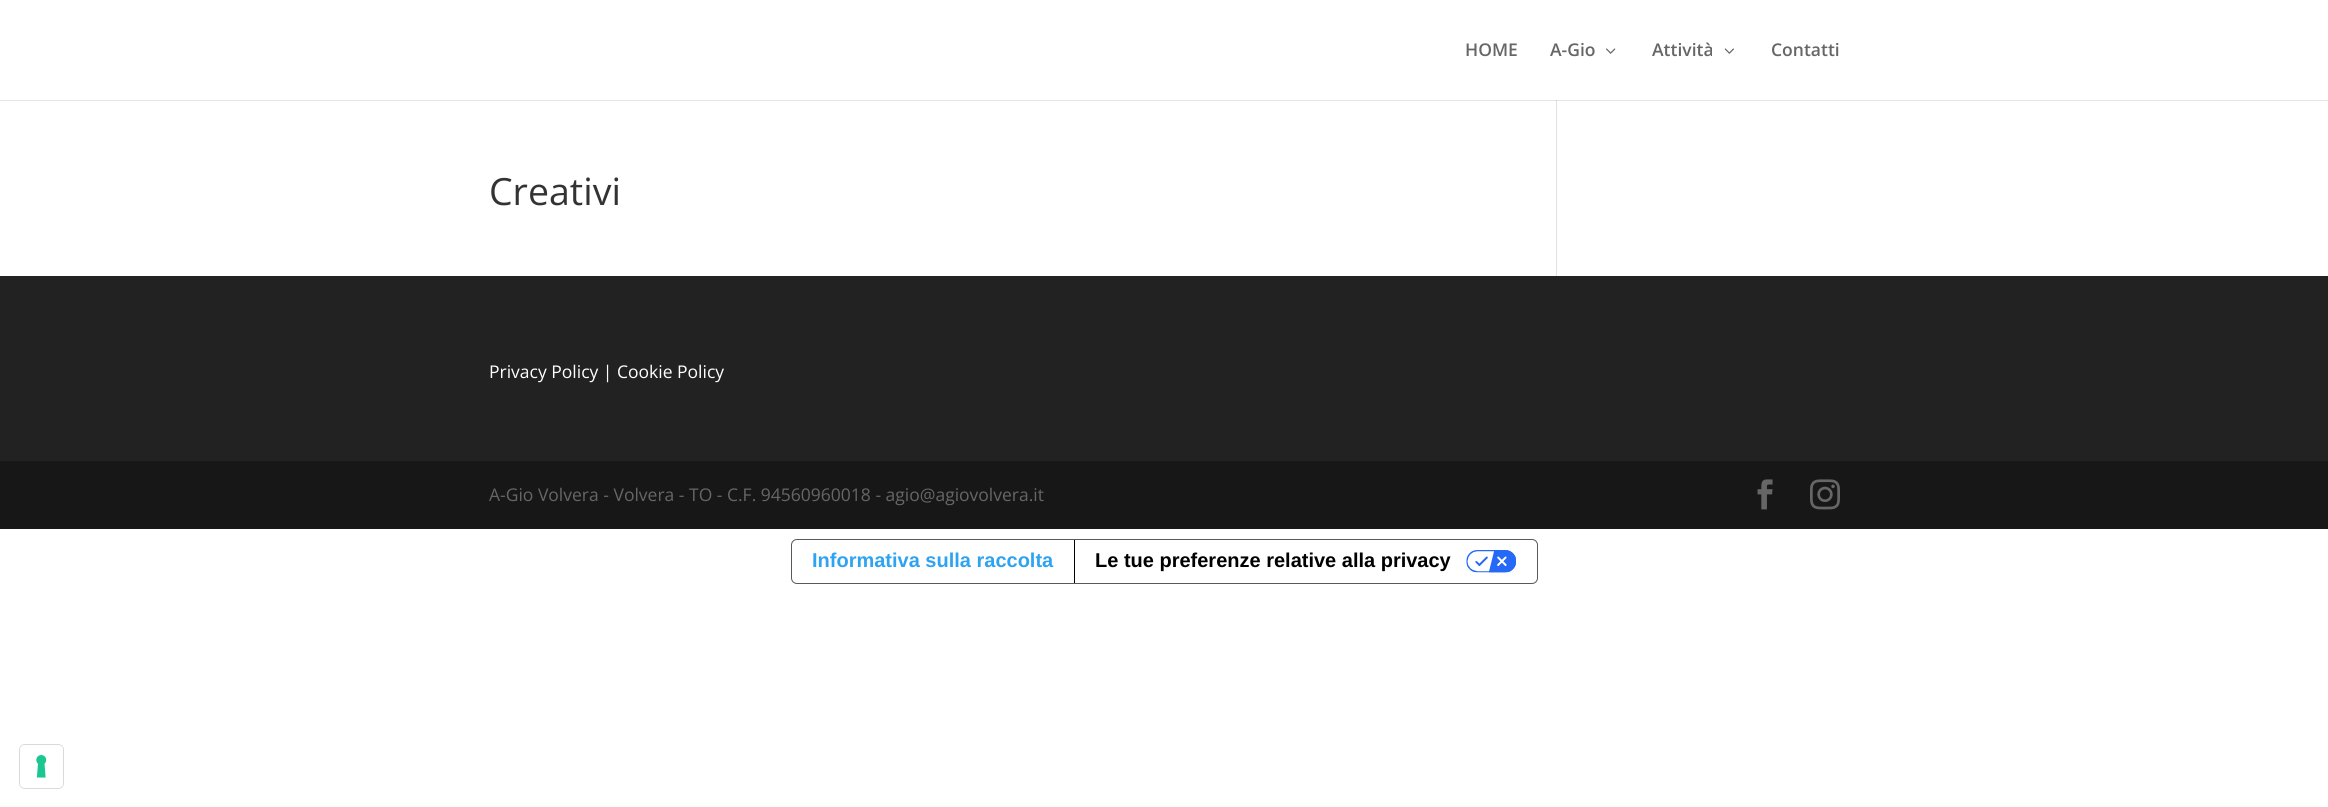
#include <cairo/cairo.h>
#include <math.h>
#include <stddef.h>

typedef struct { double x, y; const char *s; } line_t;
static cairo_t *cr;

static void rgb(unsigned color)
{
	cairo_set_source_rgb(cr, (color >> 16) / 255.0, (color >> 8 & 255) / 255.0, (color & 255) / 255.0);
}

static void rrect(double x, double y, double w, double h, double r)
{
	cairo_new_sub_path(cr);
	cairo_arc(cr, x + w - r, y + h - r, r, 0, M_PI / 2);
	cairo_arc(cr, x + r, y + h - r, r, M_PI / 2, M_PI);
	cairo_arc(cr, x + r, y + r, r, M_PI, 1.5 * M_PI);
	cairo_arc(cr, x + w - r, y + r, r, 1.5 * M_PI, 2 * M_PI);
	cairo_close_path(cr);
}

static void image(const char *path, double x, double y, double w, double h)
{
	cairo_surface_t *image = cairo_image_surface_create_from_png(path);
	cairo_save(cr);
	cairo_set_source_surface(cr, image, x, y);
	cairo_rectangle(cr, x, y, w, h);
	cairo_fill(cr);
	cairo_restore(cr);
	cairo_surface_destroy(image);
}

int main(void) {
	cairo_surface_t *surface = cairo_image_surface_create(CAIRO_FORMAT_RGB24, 2328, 807);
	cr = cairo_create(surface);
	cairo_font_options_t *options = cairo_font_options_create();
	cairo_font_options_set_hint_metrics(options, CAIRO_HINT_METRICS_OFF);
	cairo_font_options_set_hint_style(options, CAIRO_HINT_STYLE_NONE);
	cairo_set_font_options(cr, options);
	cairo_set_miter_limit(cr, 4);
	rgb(0xffffff);
	cairo_paint(cr);
	rgb(0xe2e2e2);
	cairo_rectangle(cr, 1556, 100, 1, 176);
	cairo_fill(cr);
	cairo_set_source_rgba(cr, 0, 0, 0, 0.1);
	cairo_new_path(cr);
	cairo_move_to(cr, 0, 100);
	cairo_line_to(cr, 0, 101);
	cairo_line_to(cr, 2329, 101);
	cairo_line_to(cr, 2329, 1);
	cairo_line_to(cr, 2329, 100);
	cairo_close_path(cr);
	cairo_fill(cr);
	image("img/1.png", 1606, 48, 10, 6);
	image("img/2.png", 1724, 48, 10, 6);
	rgb(0x222222);
	cairo_rectangle(cr, 0, 276, 2328, 185);
	cairo_fill(cr);
	rgb(0x171717);
	cairo_rectangle(cr, 0, 461, 2328, 68);
	cairo_fill(cr);
	image("img/3.png", 1757, 479, 16, 31);
	image("img/4.png", 1810, 479, 30, 31);
	rrect(791.5, 539.5, 746, 44, 5.5);
	rgb(0x595959);
	cairo_set_line_width(cr, 1);
	cairo_stroke(cr);
	rgb(0x000000);
	cairo_rectangle(cr, 1074, 540, 1, 43);
	cairo_fill(cr);
	image("img/5.png", 1466, 550, 50, 23);
	rrect(19.5, 744.5, 44, 44, 5.5);
	rgb(0xd9d9d9);
	cairo_stroke(cr);
	rgb(0xffffff);
	rrect(20, 745, 43, 43, 5);
	cairo_fill(cr);
	image("img/6.png", 36, 755, 11, 23);
	cairo_select_font_face(cr, "Open Sans SemiBold", CAIRO_FONT_SLANT_NORMAL, CAIRO_FONT_WEIGHT_NORMAL);
	cairo_set_font_size(cr, 17.5);
	rgb(0x666666);
	{
		static const line_t items[] = {
			{1465, 56, "HOME"},
			{1550, 56, "A-Gio"},
			{1652, 56, "Attività"},
			{1771, 56, "Contatti"},
		};
		for (size_t i = 0; i < sizeof items / sizeof *items; i++) {
			cairo_move_to(cr, items[i].x, items[i].y);
			cairo_show_text(cr, items[i].s);
		}
	}
	cairo_select_font_face(cr, "Open Sans", CAIRO_FONT_SLANT_NORMAL, CAIRO_FONT_WEIGHT_NORMAL);
	cairo_set_font_size(cr, 37.5);
	rgb(0x333333);
	cairo_move_to(cr, 489, 205);
	cairo_show_text(cr, "Creativi");
	cairo_set_font_size(cr, 17.5);
	rgb(0xffffff);
	cairo_move_to(cr, 489, 378);
	cairo_show_text(cr, "Privacy Policy | Cookie Policy");
	rgb(0x666666);
	cairo_move_to(cr, 489, 501);
	cairo_show_text(cr, "A-Gio Volvera - Volvera - TO - C.F. 94560960018 - agio@agiovolvera.it");
	cairo_select_font_face(cr, "Liberation Sans", CAIRO_FONT_SLANT_NORMAL, CAIRO_FONT_WEIGHT_BOLD);
	cairo_set_font_size(cr, 20);
	rgb(0x2ea3f2);
	cairo_move_to(cr, 812, 567);
	cairo_show_text(cr, "Informativa sulla raccolta");
	rgb(0x000000);
	cairo_move_to(cr, 1095, 567);
	cairo_show_text(cr, "Le tue preferenze relative alla privacy");
	cairo_surface_write_to_png(surface, "page.png");
	cairo_font_options_destroy(options);
	cairo_destroy(cr);
	cairo_surface_destroy(surface);
	return 0;
}
